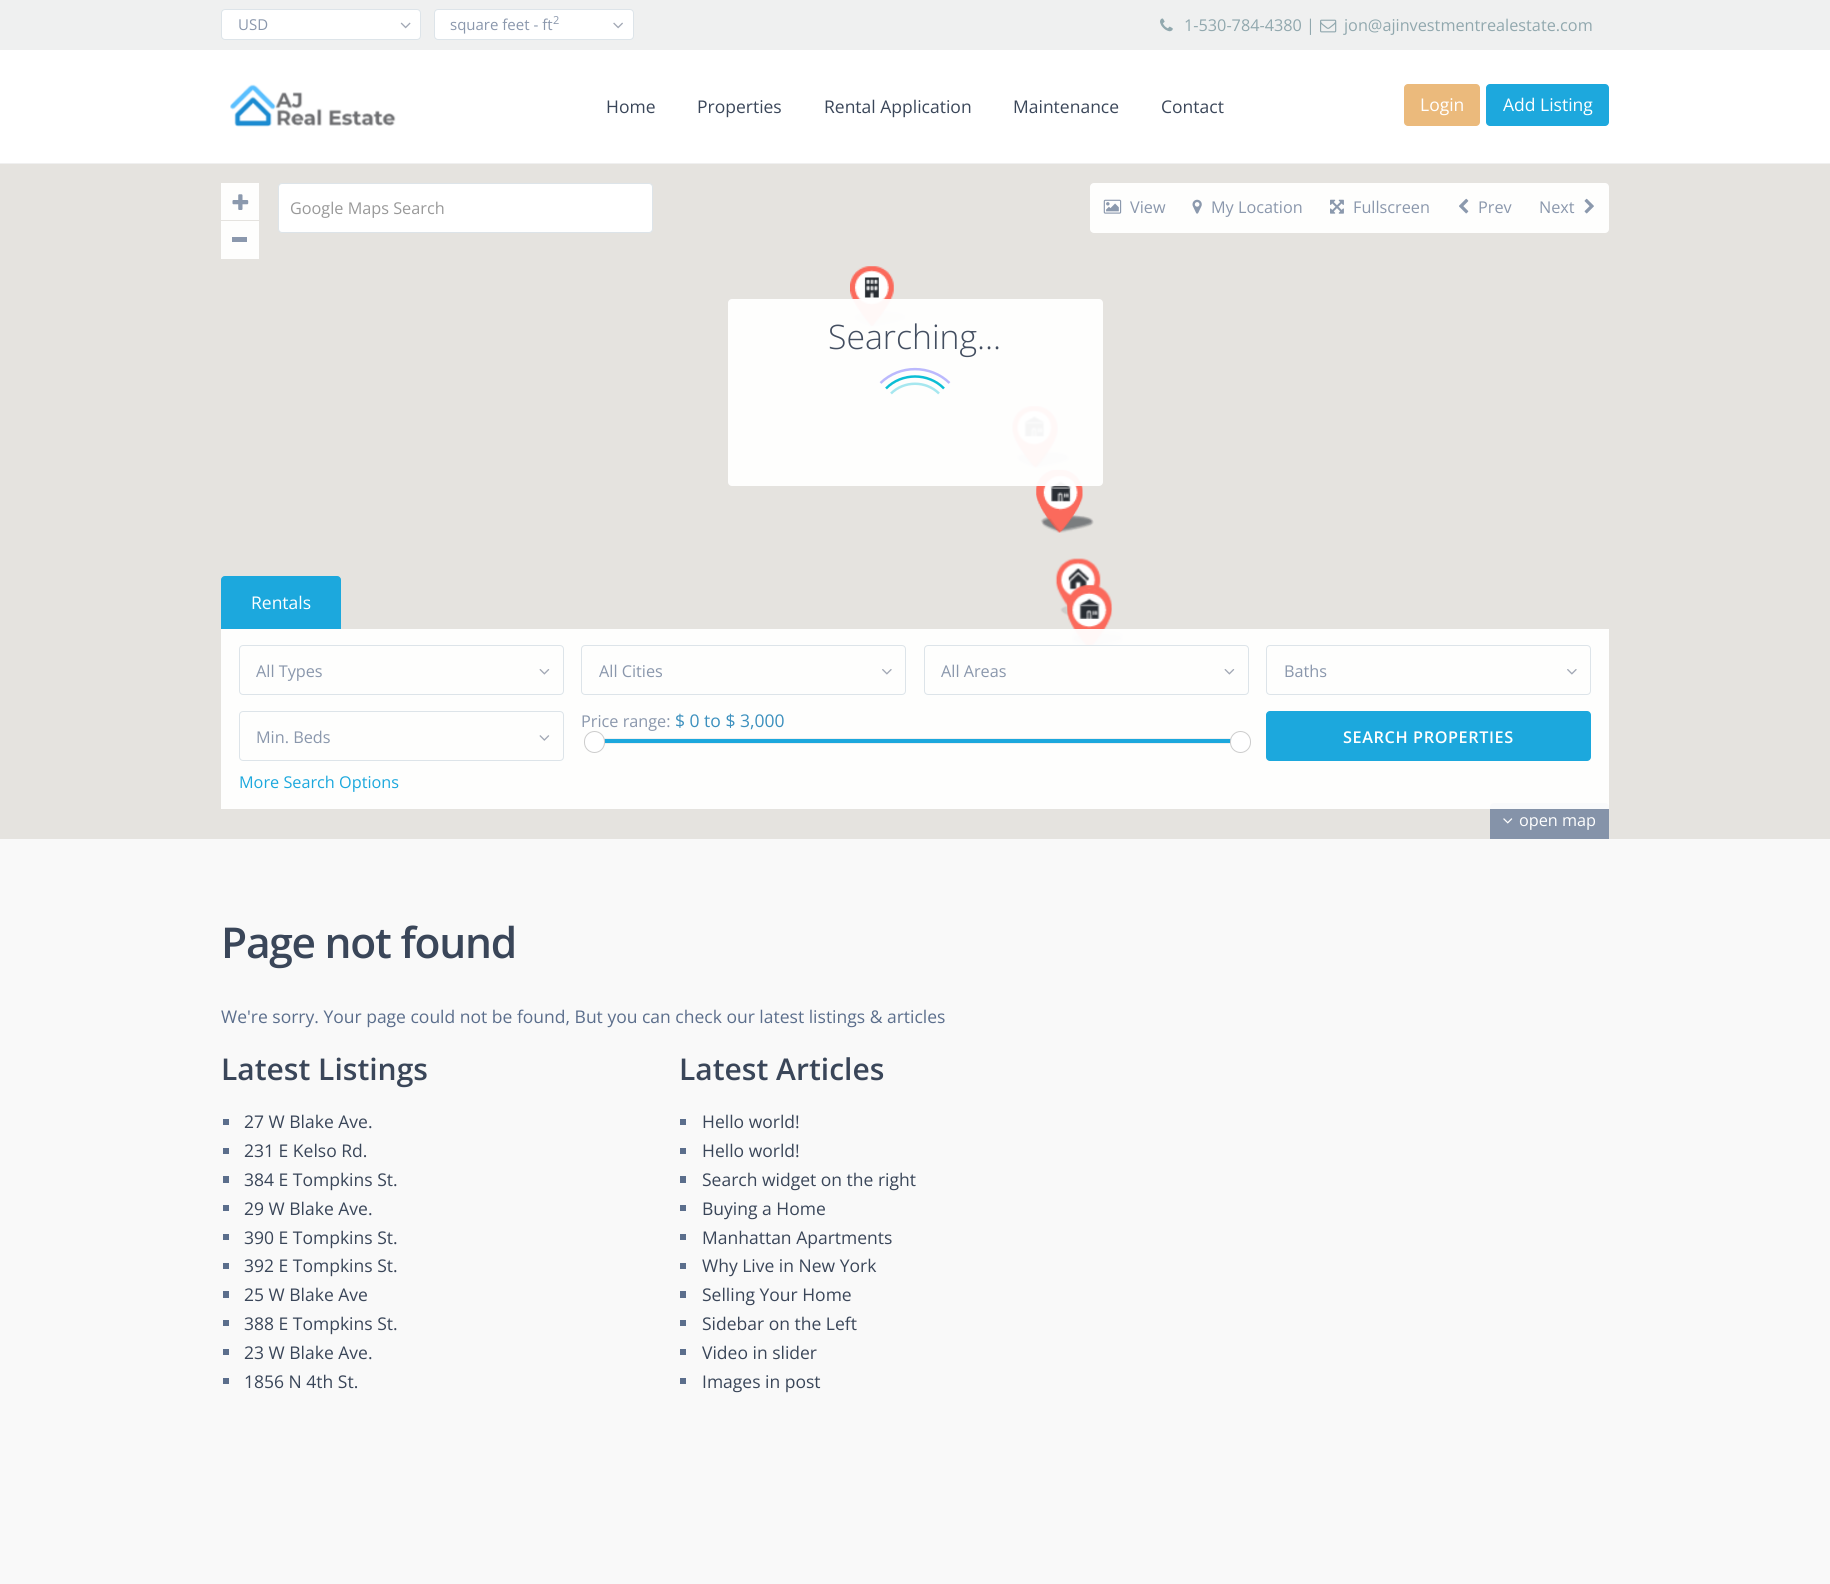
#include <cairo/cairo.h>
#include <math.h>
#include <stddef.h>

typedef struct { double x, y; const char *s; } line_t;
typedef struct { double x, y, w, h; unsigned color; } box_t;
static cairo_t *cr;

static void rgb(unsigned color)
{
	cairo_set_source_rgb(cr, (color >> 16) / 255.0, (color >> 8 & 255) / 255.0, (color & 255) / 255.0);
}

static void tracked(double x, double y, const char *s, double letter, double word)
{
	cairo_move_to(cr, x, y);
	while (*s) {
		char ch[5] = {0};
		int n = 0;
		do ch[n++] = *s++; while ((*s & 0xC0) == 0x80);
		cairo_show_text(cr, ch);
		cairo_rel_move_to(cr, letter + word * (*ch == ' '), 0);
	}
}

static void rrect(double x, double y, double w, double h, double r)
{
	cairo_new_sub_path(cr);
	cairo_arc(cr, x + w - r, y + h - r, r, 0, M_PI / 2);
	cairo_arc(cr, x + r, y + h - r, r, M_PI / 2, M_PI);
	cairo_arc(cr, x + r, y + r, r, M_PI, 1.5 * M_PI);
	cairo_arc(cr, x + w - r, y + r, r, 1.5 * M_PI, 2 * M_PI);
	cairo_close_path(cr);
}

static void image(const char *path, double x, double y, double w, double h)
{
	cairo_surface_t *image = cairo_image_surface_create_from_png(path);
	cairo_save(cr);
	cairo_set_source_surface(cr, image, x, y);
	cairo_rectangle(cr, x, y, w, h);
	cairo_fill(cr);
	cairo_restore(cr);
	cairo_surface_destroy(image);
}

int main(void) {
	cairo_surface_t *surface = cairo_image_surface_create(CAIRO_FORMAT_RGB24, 1830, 1584);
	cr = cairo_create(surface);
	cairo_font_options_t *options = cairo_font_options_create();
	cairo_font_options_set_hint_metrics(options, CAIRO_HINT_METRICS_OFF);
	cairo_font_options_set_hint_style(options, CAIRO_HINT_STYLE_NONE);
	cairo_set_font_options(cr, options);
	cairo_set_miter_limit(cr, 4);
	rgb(0xf9f9f9);
	cairo_paint(cr);
	{
		static const box_t items[] = {
			{0, 50, 1830, 113, 0xffffff},
			{0, 163, 1830, 1, 0xf0f0f0},
			{0, 0, 1830, 50, 0xeff0f0},
		};
		for (size_t i = 0; i < sizeof items / sizeof *items; i++) {
			rgb(items[i].color);
			cairo_rectangle(cr, items[i].x, items[i].y, items[i].w, items[i].h);
			cairo_fill(cr);
		}
	}
	rgb(0xffffff);
	rrect(221.5, 9.5, 199, 30, 3.5);
	cairo_fill_preserve(cr);
	rgb(0xdde4e9);
	cairo_set_line_width(cr, 1);
	cairo_stroke(cr);
	image("img/1.png", 400, 22, 11, 7);
	rgb(0xffffff);
	rrect(434.5, 9.5, 199, 30, 3.5);
	cairo_fill_preserve(cr);
	rgb(0xdde4e9);
	cairo_stroke(cr);
	image("img/2.png", 613, 22, 10, 7);
	image("img/3.png", 1160, 18, 13, 14);
	image("img/4.png", 1320, 19, 17, 14);
	image("img/5.png", 230, 84, 166, 43);
	rgb(0xebba7c);
	rrect(1404, 84, 76, 42, 4);
	cairo_fill(cr);
	rgb(0x1da8dd);
	rrect(1486, 84, 123, 42, 4);
	cairo_fill(cr);
	rgb(0xe5e3df);
	cairo_rectangle(cr, 0, 164, 1830, 675);
	cairo_fill(cr);
	image("img/6.png", 850, 266, 55, 61);
	image("img/8.png", 1013, 407, 56, 61);
	image("img/7.png", 1012, 406, 56, 61);
	image("img/9.png", 1037, 469, 56, 62);
	image("img/10.png", 1037, 469, 56, 62);
	image("img/11.png", 1036, 470, 55, 60);
	image("img/13.png", 1037, 473, 56, 59);
	image("img/14.png", 1037, 475, 56, 58);
	image("img/12.png", 1042, 472, 52, 60);
	image("img/15.png", 1055, 558, 57, 59);
	image("img/16.png", 1067, 584, 56, 61);
	image("img/17.png", 1067, 589, 56, 56);
	rgb(0xfefefd);
	cairo_rectangle(cr, 221, 183, 38, 37);
	cairo_fill(cr);
	image("img/18.png", 232, 194, 17, 16);
	rgb(0xffffff);
	rrect(278.5, 183.5, 374, 49, 3.5);
	cairo_fill_preserve(cr);
	rgb(0xdde4e9);
	cairo_stroke(cr);
	rgb(0xfefefd);
	rrect(1090, 183, 519, 50, 4);
	cairo_fill(cr);
	image("img/19.png", 1103, 199, 19, 15);
	image("img/20.png", 1192, 199, 10, 15);
	image("img/21.png", 1330, 199, 14, 15);
	image("img/22.png", 1459, 198, 10, 16);
	image("img/23.png", 1584, 198, 10, 16);
	cairo_rectangle(cr, 221, 221, 38, 38);
	cairo_fill(cr);
	rgb(0x8b98ad);
	cairo_rectangle(cr, 232, 237, 15, 5);
	cairo_fill(cr);
	rgb(0x8593a9);
	cairo_new_path(cr);
	cairo_move_to(cr, 1494, 803);
	cairo_line_to(cr, 1605, 803);
	cairo_curve_to(cr, 1607, 803, 1609, 805, 1609, 807);
	cairo_line_to(cr, 1609, 839);
	cairo_line_to(cr, 1490, 839);
	cairo_line_to(cr, 1490, 807);
	cairo_curve_to(cr, 1490, 805, 1492, 803, 1494, 803);
	cairo_close_path(cr);
	cairo_fill(cr);
	image("img/24.png", 1503, 818, 10, 6);
	cairo_set_source_rgba(cr, 1, 1, 1, 0.95);
	rrect(728, 299, 375, 187, 4);
	cairo_fill(cr);
	cairo_new_path(cr);
	cairo_move_to(cr, 880.5, 383);
	cairo_curve_to(cr, 899.5, 364.5, 930.5, 364.5, 949.5, 383);
	rgb(0xbbb9fd);
	cairo_set_line_width(cr, 2.5);
	cairo_stroke(cr);
	cairo_new_path(cr);
	cairo_move_to(cr, 886, 388.5);
	cairo_curve_to(cr, 901.5, 372.5, 928.5, 372.5, 944, 388.5);
	rgb(0x0bbed5);
	cairo_stroke(cr);
	cairo_new_path(cr);
	cairo_move_to(cr, 891, 393.5);
	cairo_curve_to(cr, 904, 380.5, 926, 380.5, 939, 393.5);
	rgb(0xa6e7ef);
	cairo_stroke(cr);
	rgb(0x1ca8dd);
	cairo_new_path(cr);
	cairo_move_to(cr, 225, 576.5);
	cairo_line_to(cr, 337, 576.5);
	cairo_curve_to(cr, 339, 576.5, 340.5, 578, 340.5, 580);
	cairo_line_to(cr, 340.5, 628.5);
	cairo_line_to(cr, 221.5, 628.5);
	cairo_line_to(cr, 221.5, 580);
	cairo_curve_to(cr, 221.5, 578, 223, 576.5, 225, 576.5);
	cairo_close_path(cr);
	cairo_fill_preserve(cr);
	cairo_set_line_width(cr, 1);
	cairo_stroke(cr);
	cairo_set_source_rgba(cr, 1, 1, 1, 0.95);
	cairo_rectangle(cr, 221, 629, 1388, 180);
	cairo_fill(cr);
	rrect(239.5, 645.5, 324, 49, 3.5);
	rgb(0xdde4e9);
	cairo_stroke(cr);
	image("img/25.png", 539, 669, 11, 6);
	rrect(581.5, 645.5, 324, 49, 3.5);
	cairo_stroke(cr);
	image("img/26.png", 882, 669, 10, 6);
	rrect(924.5, 645.5, 324, 49, 3.5);
	cairo_stroke(cr);
	image("img/25.png", 1224, 669, 11, 6);
	rrect(1266.5, 645.5, 324, 49, 3.5);
	cairo_stroke(cr);
	image("img/26.png", 1567, 669, 10, 6);
	cairo_rectangle(cr, 594.5, 738.5, 648, 5);
	rgb(0xf0f0f0);
	cairo_stroke(cr);
	rgb(0x1ca8dd);
	cairo_rectangle(cr, 604, 739, 627, 4);
	cairo_fill(cr);
	rgb(0xffffff);
	rrect(584.5, 731.5, 20, 21, 10);
	cairo_fill_preserve(cr);
	rgb(0xcccccc);
	cairo_stroke(cr);
	rgb(0xffffff);
	rrect(1230.5, 731.5, 20, 21, 10);
	cairo_fill_preserve(cr);
	rgb(0xcccccc);
	cairo_stroke(cr);
	rrect(239.5, 711.5, 324, 49, 3.5);
	rgb(0xdde4e9);
	cairo_stroke(cr);
	image("img/27.png", 539, 735, 11, 6);
	rgb(0x1ca8dd);
	rrect(1266, 711, 325, 50, 4);
	cairo_fill(cr);
	{
		static const box_t items[] = {
			{223, 1119, 6, 6, 0x5b6e8c},
			{223, 1148, 6, 6, 0x5b6e8c},
			{223, 1176, 6, 7, 0x5b6e8c},
			{223, 1205, 6, 6, 0x5b6e8c},
			{223, 1234, 6, 6, 0x5b6e8c},
			{223, 1263, 6, 6, 0x5b6e8c},
			{223, 1291, 6, 7, 0x5b6e8c},
			{223, 1320, 6, 6, 0x5b6e8c},
			{223, 1349, 6, 6, 0x5b6e8c},
			{223, 1378, 6, 6, 0x5b6e8c},
			{680, 1119, 6, 6, 0x5b6e8c},
			{680, 1148, 6, 6, 0x5b6e8c},
			{680, 1176, 6, 7, 0x5b6e8c},
			{680, 1205, 6, 6, 0x5b6e8c},
			{680, 1234, 6, 6, 0x5b6e8c},
			{680, 1263, 6, 6, 0x5b6e8c},
			{680, 1291, 6, 7, 0x5b6e8c},
			{680, 1320, 6, 6, 0x5b6e8c},
			{680, 1349, 6, 6, 0x5b6e8c},
			{680, 1378, 6, 6, 0x5b6e8c},
		};
		for (size_t i = 0; i < sizeof items / sizeof *items; i++) {
			rgb(items[i].color);
			cairo_rectangle(cr, items[i].x, items[i].y, items[i].w, items[i].h);
			cairo_fill(cr);
		}
	}
	cairo_select_font_face(cr, "Open Sans", CAIRO_FONT_SLANT_NORMAL, CAIRO_FONT_WEIGHT_NORMAL);
	cairo_set_font_size(cr, 15);
	rgb(0x8a97ac);
	cairo_move_to(cr, 238, 30);
	cairo_show_text(cr, "USD");
	cairo_move_to(cr, 450, 30);
	cairo_show_text(cr, "square feet - ft");
	cairo_set_font_size(cr, 11);
	cairo_move_to(cr, 553, 24);
	cairo_show_text(cr, "2");
	cairo_set_font_size(cr, 16.25);
	rgb(0x91a8ae);
	cairo_move_to(cr, 1184, 31);
	cairo_show_text(cr, "1-530-784-4380 |");
	cairo_move_to(cr, 1344, 31);
	cairo_show_text(cr, "jon@ajinvestmentrealestate.com");
	cairo_set_font_size(cr, 17.5);
	rgb(0x3a4659);
	{
		static const line_t items[] = {
			{606, 113, "Home"},
			{697, 113, "Properties"},
			{824, 113, "Rental Application"},
			{1013, 113, "Maintenance"},
			{1161, 113, "Contact"},
		};
		for (size_t i = 0; i < sizeof items / sizeof *items; i++) {
			cairo_move_to(cr, items[i].x, items[i].y);
			cairo_show_text(cr, items[i].s);
		}
	}
	rgb(0xffffff);
	cairo_move_to(cr, 1420, 111);
	cairo_show_text(cr, "Login");
	cairo_move_to(cr, 1503, 111);
	cairo_show_text(cr, "Add Listing");
	cairo_set_font_size(cr, 16.25);
	rgb(0x999999);
	cairo_move_to(cr, 290, 214);
	cairo_show_text(cr, "Google Maps Search");
	rgb(0x8a97ac);
	{
		static const line_t items[] = {
			{1130, 213, "View"},
			{1211, 213, "My Location"},
			{1353, 213, "Fullscreen"},
			{1478, 213, "Prev"},
			{1539, 213, "Next"},
		};
		for (size_t i = 0; i < sizeof items / sizeof *items; i++) {
			cairo_move_to(cr, items[i].x, items[i].y);
			cairo_show_text(cr, items[i].s);
		}
	}
	rgb(0xffffff);
	cairo_move_to(cr, 1519, 826);
	cairo_show_text(cr, "open map");
	cairo_select_font_face(cr, "Open Sans Light", CAIRO_FONT_SLANT_NORMAL, CAIRO_FONT_WEIGHT_NORMAL);
	cairo_set_font_size(cr, 33.75);
	rgb(0x434e60);
	cairo_move_to(cr, 828, 349);
	cairo_show_text(cr, "Searching...");
	cairo_select_font_face(cr, "Open Sans", CAIRO_FONT_SLANT_NORMAL, CAIRO_FONT_WEIGHT_NORMAL);
	cairo_set_font_size(cr, 17.5);
	rgb(0xffffff);
	cairo_move_to(cr, 251, 609);
	cairo_show_text(cr, "Rentals");
	cairo_set_font_size(cr, 16.25);
	rgb(0x8a97ac);
	{
		static const line_t items[] = {
			{256, 677, "All Types"},
			{599, 677, "All Cities"},
			{941, 677, "All Areas"},
			{1284, 677, "Baths"},
			{581, 727, "Price range:"},
		};
		for (size_t i = 0; i < sizeof items / sizeof *items; i++) {
			cairo_move_to(cr, items[i].x, items[i].y);
			cairo_show_text(cr, items[i].s);
		}
	}
	cairo_set_font_size(cr, 17.5);
	rgb(0x3c90be);
	cairo_move_to(cr, 675, 727);
	cairo_show_text(cr, "$ 0 to $ 3,000");
	cairo_set_font_size(cr, 16.25);
	rgb(0x8a97ac);
	cairo_move_to(cr, 256, 743);
	cairo_show_text(cr, "Min. Beds");
	cairo_select_font_face(cr, "Open Sans SemiBold", CAIRO_FONT_SLANT_NORMAL, CAIRO_FONT_WEIGHT_NORMAL);
	rgb(0xffffff);
	tracked(1343, 743, "SEARCH PROPERTIES", 0.6, 0);
	cairo_select_font_face(cr, "Open Sans", CAIRO_FONT_SLANT_NORMAL, CAIRO_FONT_WEIGHT_NORMAL);
	rgb(0x1ca8dd);
	cairo_move_to(cr, 239, 788);
	cairo_show_text(cr, "More Search Options");
	cairo_select_font_face(cr, "Open Sans SemiBold", CAIRO_FONT_SLANT_NORMAL, CAIRO_FONT_WEIGHT_NORMAL);
	cairo_set_font_size(cr, 42.5);
	rgb(0x3a4659);
	tracked(221, 958, "Page not found", -1.25, 0);
	cairo_select_font_face(cr, "Open Sans", CAIRO_FONT_SLANT_NORMAL, CAIRO_FONT_WEIGHT_NORMAL);
	cairo_set_font_size(cr, 17.5);
	rgb(0x5b6e8c);
	cairo_move_to(cr, 221, 1023);
	cairo_show_text(cr, "We're sorry. Your page could not be found, But you can check our latest listings & articles");
	cairo_select_font_face(cr, "Open Sans SemiBold", CAIRO_FONT_SLANT_NORMAL, CAIRO_FONT_WEIGHT_NORMAL);
	cairo_set_font_size(cr, 30);
	rgb(0x3a4659);
	cairo_move_to(cr, 221, 1080);
	cairo_show_text(cr, "Latest Listings");
	cairo_select_font_face(cr, "Open Sans", CAIRO_FONT_SLANT_NORMAL, CAIRO_FONT_WEIGHT_NORMAL);
	cairo_set_font_size(cr, 17.5);
	{
		static const line_t items[] = {
			{244, 1128, "27 W Blake Ave."},
			{244, 1157, "231 E Kelso Rd."},
			{244, 1186, "384 E Tompkins St."},
			{244, 1215, "29 W Blake Ave."},
			{244, 1244, "390 E Tompkins St."},
			{244, 1272, "392 E Tompkins St."},
			{244, 1301, "25 W Blake Ave"},
			{244, 1330, "388 E Tompkins St."},
			{244, 1359, "23 W Blake Ave."},
			{244, 1388, "1856 N 4th St."},
		};
		for (size_t i = 0; i < sizeof items / sizeof *items; i++) {
			cairo_move_to(cr, items[i].x, items[i].y);
			cairo_show_text(cr, items[i].s);
		}
	}
	cairo_select_font_face(cr, "Open Sans SemiBold", CAIRO_FONT_SLANT_NORMAL, CAIRO_FONT_WEIGHT_NORMAL);
	cairo_set_font_size(cr, 30);
	cairo_move_to(cr, 679, 1080);
	cairo_show_text(cr, "Latest Articles");
	cairo_select_font_face(cr, "Open Sans", CAIRO_FONT_SLANT_NORMAL, CAIRO_FONT_WEIGHT_NORMAL);
	cairo_set_font_size(cr, 17.5);
	{
		static const line_t items[] = {
			{702, 1128, "Hello world!"},
			{702, 1157, "Hello world!"},
			{702, 1186, "Search widget on the right"},
			{702, 1215, "Buying a Home"},
			{702, 1244, "Manhattan Apartments"},
			{702, 1272, "Why Live in New York"},
			{702, 1301, "Selling Your Home"},
			{702, 1330, "Sidebar on the Left"},
			{702, 1359, "Video in slider"},
			{702, 1388, "Images in post"},
		};
		for (size_t i = 0; i < sizeof items / sizeof *items; i++) {
			cairo_move_to(cr, items[i].x, items[i].y);
			cairo_show_text(cr, items[i].s);
		}
	}
	cairo_surface_write_to_png(surface, "page.png");
	cairo_font_options_destroy(options);
	cairo_destroy(cr);
	cairo_surface_destroy(surface);
	return 0;
}
